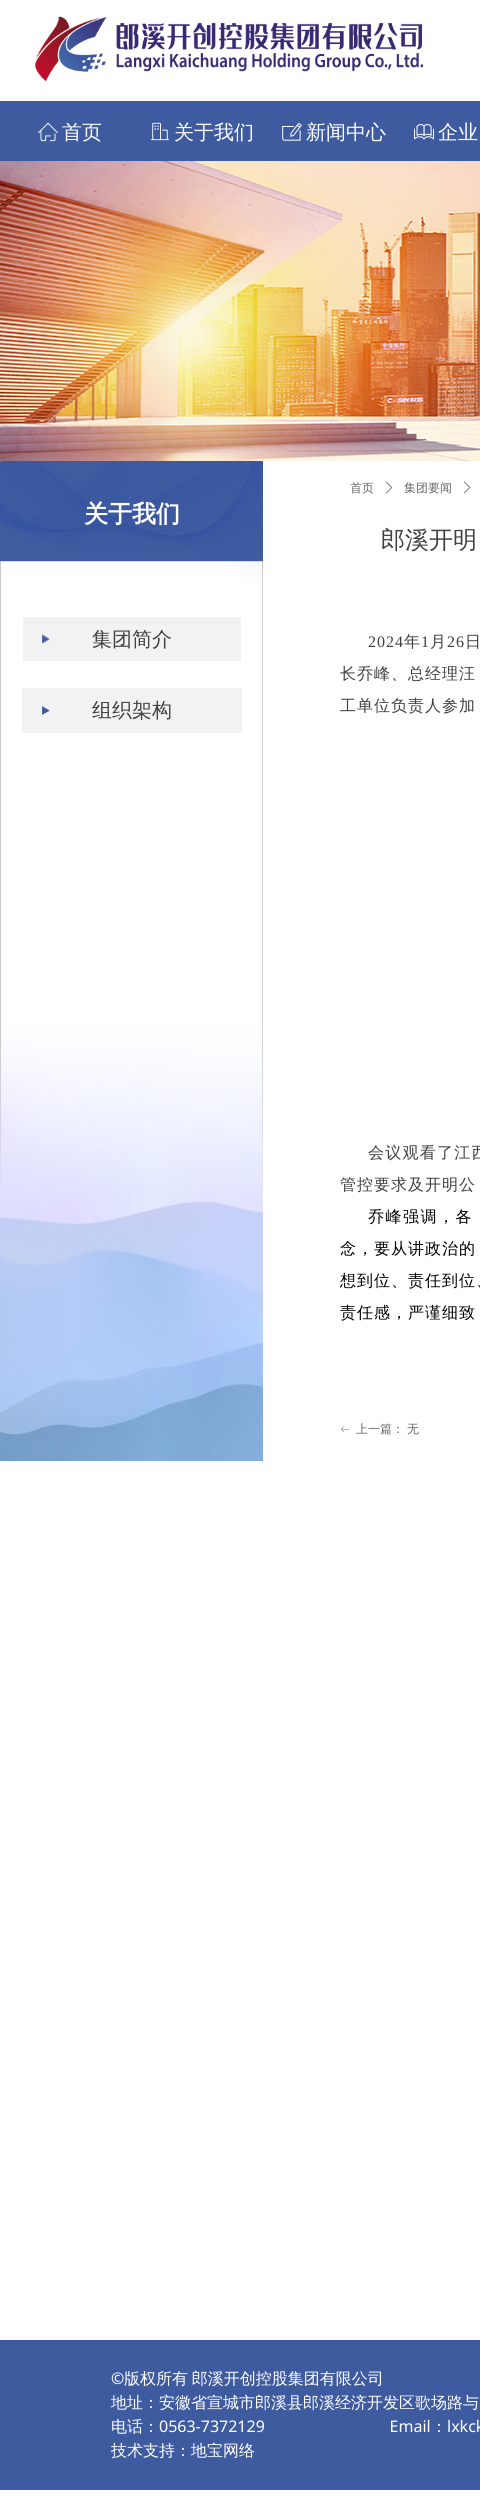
#include <cairo/cairo.h>
#include <math.h>
#include <stddef.h>

typedef struct { double x, y; const char *s; } line_t;
static cairo_t *cr;

static void rgb(unsigned color)
{
	cairo_set_source_rgb(cr, (color >> 16) / 255.0, (color >> 8 & 255) / 255.0, (color & 255) / 255.0);
}

static void tracked(double x, double y, const char *s, double letter, double word)
{
	cairo_move_to(cr, x, y);
	while (*s) {
		char ch[5] = {0};
		int n = 0;
		do ch[n++] = *s++; while ((*s & 0xC0) == 0x80);
		cairo_show_text(cr, ch);
		cairo_rel_move_to(cr, letter + word * (*ch == ' '), 0);
	}
}

static void image(const char *path, double x, double y, double w, double h)
{
	cairo_surface_t *image = cairo_image_surface_create_from_png(path);
	cairo_save(cr);
	cairo_set_source_surface(cr, image, x, y);
	cairo_rectangle(cr, x, y, w, h);
	cairo_fill(cr);
	cairo_restore(cr);
	cairo_surface_destroy(image);
}

int main(void) {
	cairo_surface_t *surface = cairo_image_surface_create(CAIRO_FORMAT_RGB24, 480, 2504);
	cr = cairo_create(surface);
	cairo_font_options_t *options = cairo_font_options_create();
	cairo_font_options_set_hint_metrics(options, CAIRO_HINT_METRICS_OFF);
	cairo_font_options_set_hint_style(options, CAIRO_HINT_STYLE_NONE);
	cairo_set_font_options(cr, options);
	cairo_set_miter_limit(cr, 4);
	rgb(0xffffff);
	cairo_paint(cr);
	image("img/1.png", 35, 16, 389, 66);
	rgb(0x3f5ba0);
	cairo_rectangle(cr, 0, 101, 480, 60);
	cairo_fill(cr);
	image("img/2.png", 38, 122, 20, 20);
	image("img/3.png", 151, 122, 18, 19);
	image("img/4.png", 282, 122, 20, 19);
	image("img/5.png", 414, 124, 20, 16);
	image("img/6.png", 0, 161, 480, 300);
	image("img/7.png", 0, 461, 263, 1000);
	image("img/8.png", 23, 617, 218, 44);
	image("img/9.png", 22, 688, 220, 45);
	image("img/10.png", 385, 481, 8, 13);
	image("img/10.png", 463, 481, 8, 13);
	image("img/11.png", 341, 1426, 9, 7);
	cairo_rectangle(cr, 0, 2340, 480, 150);
	cairo_fill(cr);
	cairo_select_font_face(cr, "WenQuanYi Zen Hei Medium", CAIRO_FONT_SLANT_NORMAL, CAIRO_FONT_WEIGHT_NORMAL);
	cairo_set_font_size(cr, 20);
	rgb(0xffffff);
	{
		static const line_t items[] = {
			{62, 139, "首页"},
			{174, 139, "关于我们"},
			{306, 139, "新闻中心"},
			{438, 139, "企业"},
		};
		for (size_t i = 0; i < sizeof items / sizeof *items; i++) {
			cairo_move_to(cr, items[i].x, items[i].y);
			cairo_show_text(cr, items[i].s);
		}
	}
	cairo_select_font_face(cr, "WenQuanYi Zen Hei", CAIRO_FONT_SLANT_NORMAL, CAIRO_FONT_WEIGHT_BOLD);
	cairo_set_font_size(cr, 24);
	cairo_move_to(cr, 84, 522);
	cairo_show_text(cr, "关于我们");
	cairo_select_font_face(cr, "WenQuanYi Zen Hei Medium", CAIRO_FONT_SLANT_NORMAL, CAIRO_FONT_WEIGHT_NORMAL);
	cairo_set_font_size(cr, 20);
	rgb(0x404040);
	cairo_move_to(cr, 92, 646);
	cairo_show_text(cr, "集团简介");
	cairo_move_to(cr, 92, 717);
	cairo_show_text(cr, "组织架构");
	cairo_set_font_size(cr, 12);
	rgb(0x666666);
	cairo_move_to(cr, 350, 492);
	cairo_show_text(cr, "首页");
	cairo_move_to(cr, 404, 492);
	cairo_show_text(cr, "集团要闻");
	cairo_set_font_size(cr, 24);
	rgb(0x404040);
	cairo_move_to(cr, 381, 548);
	cairo_show_text(cr, "郎溪开明");
	cairo_select_font_face(cr, "Liberation Serif", CAIRO_FONT_SLANT_NORMAL, CAIRO_FONT_WEIGHT_NORMAL);
	cairo_set_font_size(cr, 16);
	tracked(368, 647, "2024", 1, 0);
	cairo_select_font_face(cr, "WenQuanYi Zen Hei Medium", CAIRO_FONT_SLANT_NORMAL, CAIRO_FONT_WEIGHT_NORMAL);
	tracked(404, 647, "年", 1, 0);
	cairo_select_font_face(cr, "Liberation Serif", CAIRO_FONT_SLANT_NORMAL, CAIRO_FONT_WEIGHT_NORMAL);
	tracked(421, 647, "1", 1, 0);
	cairo_select_font_face(cr, "WenQuanYi Zen Hei Medium", CAIRO_FONT_SLANT_NORMAL, CAIRO_FONT_WEIGHT_NORMAL);
	tracked(430, 647, "月", 1, 0);
	cairo_select_font_face(cr, "Liberation Serif", CAIRO_FONT_SLANT_NORMAL, CAIRO_FONT_WEIGHT_NORMAL);
	tracked(447, 647, "26", 1, 0);
	cairo_select_font_face(cr, "WenQuanYi Zen Hei Medium", CAIRO_FONT_SLANT_NORMAL, CAIRO_FONT_WEIGHT_NORMAL);
	{
		static const line_t items[] = {
			{465, 647, "日"},
			{340, 679, "长乔峰、总经理汪"},
			{340, 711, "工单位负责人参加"},
		};
		for (size_t i = 0; i < sizeof items / sizeof *items; i++) {
			tracked(items[i].x, items[i].y, items[i].s, 1, 0);
		}
	}
	tracked(368, 1158, "会议观看了江西", 1.25, 0);
	tracked(340, 1190, "管控要求及开明公", 1, 0);
	rgb(0x000000);
	tracked(368, 1222, "乔峰强调，各", 1.5, 0);
	{
		static const line_t items[] = {
			{340, 1254, "念，要从讲政治的"},
			{340, 1286, "想到位、责任到位、"},
			{340, 1318, "责任感，严谨细致"},
		};
		for (size_t i = 0; i < sizeof items / sizeof *items; i++) {
			tracked(items[i].x, items[i].y, items[i].s, 1, 0);
		}
	}
	cairo_set_font_size(cr, 12);
	rgb(0x666666);
	cairo_move_to(cr, 356, 1433);
	cairo_show_text(cr, "上一篇：");
	cairo_move_to(cr, 407, 1433);
	cairo_show_text(cr, "无");
	cairo_select_font_face(cr, "Noto Sans", CAIRO_FONT_SLANT_NORMAL, CAIRO_FONT_WEIGHT_NORMAL);
	cairo_set_font_size(cr, 16);
	rgb(0xffffff);
	cairo_move_to(cr, 111, 2384);
	cairo_show_text(cr, "©");
	cairo_select_font_face(cr, "WenQuanYi Zen Hei Medium", CAIRO_FONT_SLANT_NORMAL, CAIRO_FONT_WEIGHT_NORMAL);
	tracked(124, 2384, "版权所有 郎溪开创控股集团有限公司", 0, -1);
	cairo_move_to(cr, 111, 2408);
	cairo_show_text(cr, "地址：安徽省宣城市郎溪县郎溪经济开发区歌场路与");
	cairo_move_to(cr, 111, 2432);
	cairo_show_text(cr, "电话：");
	cairo_select_font_face(cr, "Noto Sans", CAIRO_FONT_SLANT_NORMAL, CAIRO_FONT_WEIGHT_NORMAL);
	cairo_move_to(cr, 159, 2432);
	cairo_show_text(cr, "0563-7372129                              Email");
	cairo_select_font_face(cr, "WenQuanYi Zen Hei Medium", CAIRO_FONT_SLANT_NORMAL, CAIRO_FONT_WEIGHT_NORMAL);
	cairo_move_to(cr, 431, 2432);
	cairo_show_text(cr, "：");
	cairo_select_font_face(cr, "Noto Sans", CAIRO_FONT_SLANT_NORMAL, CAIRO_FONT_WEIGHT_NORMAL);
	cairo_move_to(cr, 447, 2432);
	cairo_show_text(cr, "lxkck");
	cairo_select_font_face(cr, "WenQuanYi Zen Hei Medium", CAIRO_FONT_SLANT_NORMAL, CAIRO_FONT_WEIGHT_NORMAL);
	cairo_move_to(cr, 111, 2456);
	cairo_show_text(cr, "技术支持：地宝网络");
	cairo_surface_write_to_png(surface, "page.png");
	cairo_font_options_destroy(options);
	cairo_destroy(cr);
	cairo_surface_destroy(surface);
	return 0;
}
